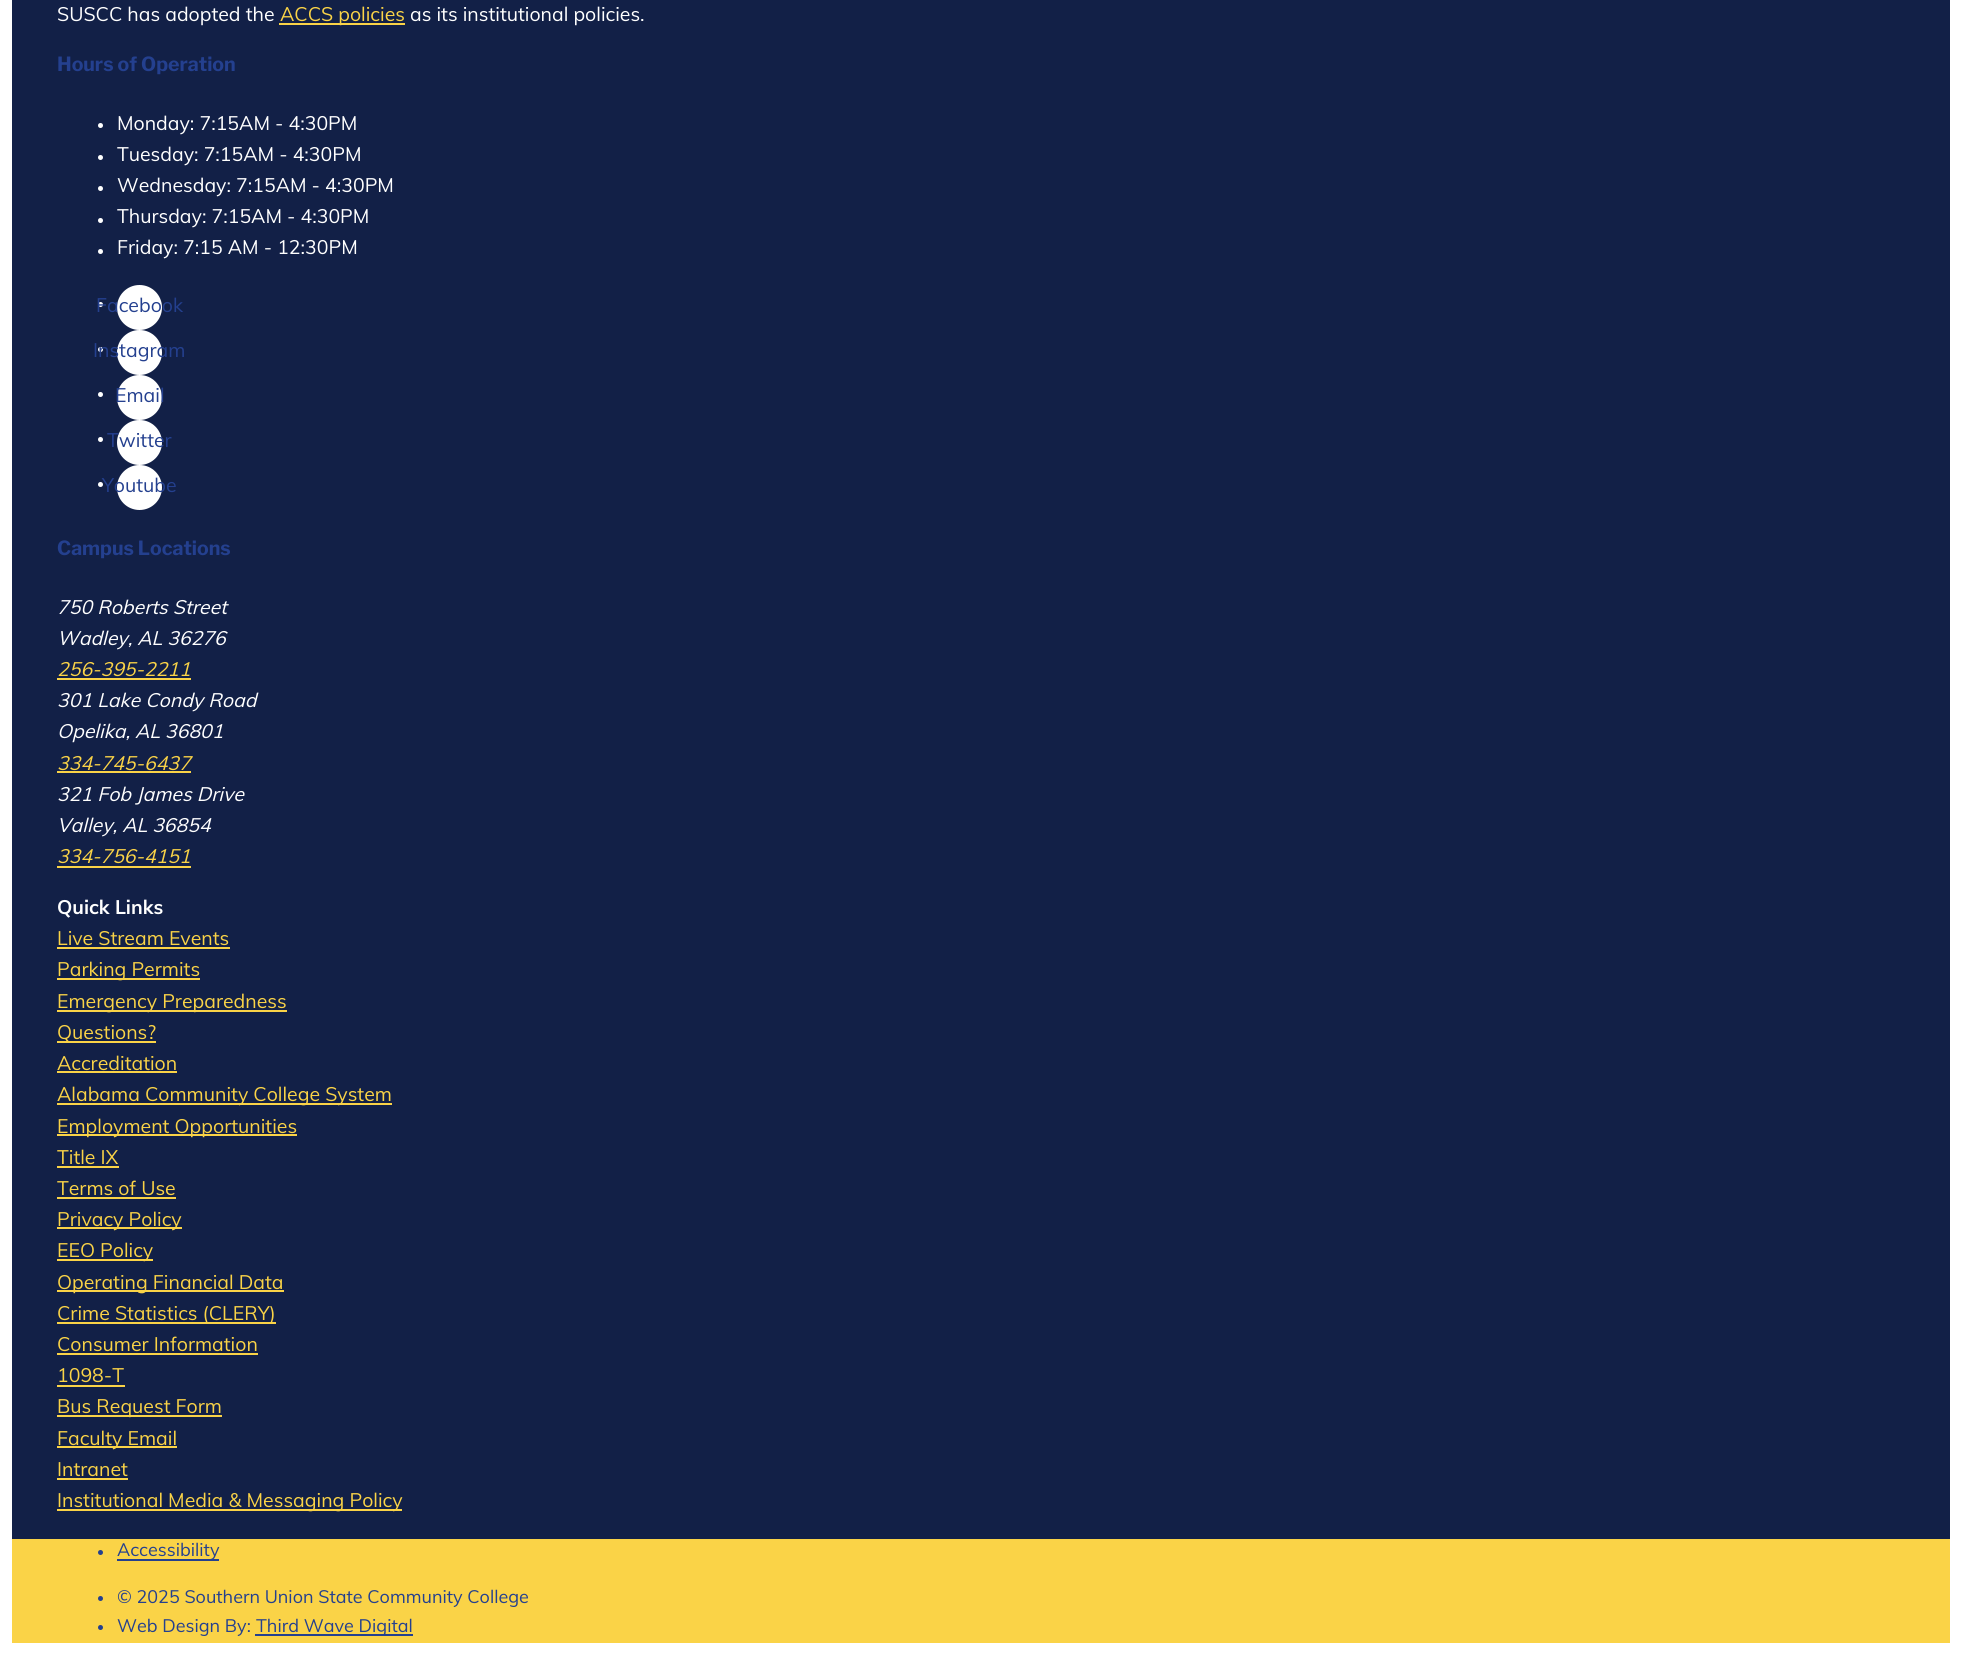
#include <cairo/cairo.h>
#include <math.h>
#include <stddef.h>

typedef struct { double x, y; const char *s; } line_t;
typedef struct { double x, y, w, h; unsigned color; } box_t;
static cairo_t *cr;

static void rgb(unsigned color)
{
	cairo_set_source_rgb(cr, (color >> 16) / 255.0, (color >> 8 & 255) / 255.0, (color & 255) / 255.0);
}

int main(void) {
	cairo_surface_t *surface = cairo_image_surface_create(CAIRO_FORMAT_RGB24, 1961, 1672);
	cr = cairo_create(surface);
	cairo_font_options_t *options = cairo_font_options_create();
	cairo_font_options_set_hint_metrics(options, CAIRO_HINT_METRICS_OFF);
	cairo_font_options_set_hint_style(options, CAIRO_HINT_STYLE_NONE);
	cairo_set_font_options(cr, options);
	cairo_set_miter_limit(cr, 4);
	rgb(0xffffff);
	cairo_paint(cr);
	rgb(0x122047);
	cairo_rectangle(cr, 12, 0, 1938, 1539);
	cairo_fill(cr);
	rgb(0xfad347);
	cairo_rectangle(cr, 279, 23, 126, 2);
	cairo_fill(cr);
	rgb(0xffffff);
	cairo_arc(cr, 100.5, 125.5, 2.5, 0, 2 * M_PI);
	cairo_fill(cr);
	cairo_arc(cr, 100.5, 157.5, 2.5, 0, 2 * M_PI);
	cairo_fill(cr);
	cairo_arc(cr, 100.5, 188.5, 2.5, 0, 2 * M_PI);
	cairo_fill(cr);
	cairo_arc(cr, 100.5, 220.5, 2.5, 0, 2 * M_PI);
	cairo_fill(cr);
	cairo_arc(cr, 100.5, 251.5, 2.5, 0, 2 * M_PI);
	cairo_fill(cr);
	cairo_arc(cr, 139.5, 307.5, 22.5, 0, 2 * M_PI);
	cairo_fill(cr);
	cairo_arc(cr, 100.5, 304.5, 2.5, 0, 2 * M_PI);
	cairo_fill(cr);
	cairo_arc(cr, 139.5, 352.5, 22.5, 0, 2 * M_PI);
	cairo_fill(cr);
	cairo_arc(cr, 100.5, 349.5, 2.5, 0, 2 * M_PI);
	cairo_fill(cr);
	cairo_arc(cr, 100.5, 394.5, 2.5, 0, 2 * M_PI);
	cairo_fill(cr);
	cairo_arc(cr, 139.5, 397.5, 22.5, 0, 2 * M_PI);
	cairo_fill(cr);
	cairo_arc(cr, 100.5, 439.5, 2.5, 0, 2 * M_PI);
	cairo_fill(cr);
	cairo_arc(cr, 139.5, 442.5, 22.5, 0, 2 * M_PI);
	cairo_fill(cr);
	cairo_arc(cr, 100.5, 484.5, 2.5, 0, 2 * M_PI);
	cairo_fill(cr);
	cairo_arc(cr, 139.5, 487.5, 22.5, 0, 2 * M_PI);
	cairo_fill(cr);
	{
		static const box_t items[] = {
			{57, 678, 134, 2, 0xfad347},
			{57, 771, 134, 2, 0xfad347},
			{57, 866, 134, 2, 0xfad347},
			{57, 947, 173, 2, 0xfad347},
			{57, 978, 143, 2, 0xfad347},
			{57, 1010, 230, 2, 0xfad347},
			{57, 1041, 99, 2, 0xfad347},
			{57, 1071, 120, 2, 0xfad347},
			{57, 1103, 335, 2, 0xfad347},
			{57, 1134, 240, 2, 0xfad347},
			{57, 1166, 62, 2, 0xfad347},
			{57, 1197, 119, 2, 0xfad347},
			{57, 1227, 125, 2, 0xfad347},
			{57, 1259, 96, 2, 0xfad347},
			{57, 1290, 227, 2, 0xfad347},
			{57, 1322, 219, 2, 0xfad347},
			{57, 1353, 201, 2, 0xfad347},
			{57, 1385, 68, 2, 0xfad347},
			{57, 1415, 165, 2, 0xfad347},
			{57, 1446, 120, 2, 0xfad347},
			{57, 1478, 71, 2, 0xfad347},
			{57, 1509, 345, 2, 0xfad347},
			{12, 1539, 1938, 104, 0xfad347},
		};
		for (size_t i = 0; i < sizeof items / sizeof *items; i++) {
			rgb(items[i].color);
			cairo_rectangle(cr, items[i].x, items[i].y, items[i].w, items[i].h);
			cairo_fill(cr);
		}
	}
	rgb(0x24408f);
	cairo_arc(cr, 100.5, 1552.5, 2.5, 0, 2 * M_PI);
	cairo_fill(cr);
	cairo_rectangle(cr, 117, 1559, 102, 2);
	cairo_fill(cr);
	cairo_arc(cr, 100.5, 1598.5, 2.5, 0, 2 * M_PI);
	cairo_fill(cr);
	cairo_arc(cr, 100.5, 1627.5, 2.5, 0, 2 * M_PI);
	cairo_fill(cr);
	cairo_rectangle(cr, 255, 1634, 158, 2);
	cairo_fill(cr);
	cairo_select_font_face(cr, "Muli", CAIRO_FONT_SLANT_NORMAL, CAIRO_FONT_WEIGHT_NORMAL);
	cairo_set_font_size(cr, 19.5);
	rgb(0xffffff);
	cairo_move_to(cr, 57, 21);
	cairo_show_text(cr, "SUSCC has adopted the");
	rgb(0xfad347);
	cairo_move_to(cr, 280, 21);
	cairo_show_text(cr, "ACCS policies");
	rgb(0xffffff);
	cairo_move_to(cr, 410, 21);
	cairo_show_text(cr, "as its institutional policies.");
	cairo_select_font_face(cr, "Libre Franklin", CAIRO_FONT_SLANT_NORMAL, CAIRO_FONT_WEIGHT_BOLD);
	rgb(0x24408f);
	cairo_move_to(cr, 57, 71);
	cairo_show_text(cr, "Hours of Operation");
	cairo_select_font_face(cr, "Muli", CAIRO_FONT_SLANT_NORMAL, CAIRO_FONT_WEIGHT_NORMAL);
	rgb(0xffffff);
	{
		static const line_t items[] = {
			{117, 130, "Monday: 7:15AM - 4:30PM"},
			{117, 161, "Tuesday: 7:15AM - 4:30PM"},
			{117, 192, "Wednesday: 7:15AM - 4:30PM"},
			{117, 223, "Thursday: 7:15AM - 4:30PM"},
			{117, 254, "Friday: 7:15 AM - 12:30PM"},
		};
		for (size_t i = 0; i < sizeof items / sizeof *items; i++) {
			cairo_move_to(cr, items[i].x, items[i].y);
			cairo_show_text(cr, items[i].s);
		}
	}
	rgb(0x24408f);
	{
		static const line_t items[] = {
			{96, 312, "Facebook"},
			{93, 357, "Instagram"},
			{115, 402, "Email"},
			{107, 447, "Twitter"},
			{102, 492, "Youtube"},
		};
		for (size_t i = 0; i < sizeof items / sizeof *items; i++) {
			cairo_move_to(cr, items[i].x, items[i].y);
			cairo_show_text(cr, items[i].s);
		}
	}
	cairo_select_font_face(cr, "Libre Franklin", CAIRO_FONT_SLANT_NORMAL, CAIRO_FONT_WEIGHT_BOLD);
	cairo_move_to(cr, 57, 555);
	cairo_show_text(cr, "Campus Locations");
	cairo_select_font_face(cr, "Muli", CAIRO_FONT_SLANT_ITALIC, CAIRO_FONT_WEIGHT_NORMAL);
	rgb(0xffffff);
	cairo_move_to(cr, 57, 614);
	cairo_show_text(cr, "750 Roberts Street");
	cairo_move_to(cr, 57, 645);
	cairo_show_text(cr, "Wadley, AL 36276");
	rgb(0xfad347);
	cairo_move_to(cr, 57, 676);
	cairo_show_text(cr, "256-395-2211");
	rgb(0xffffff);
	cairo_move_to(cr, 57, 707);
	cairo_show_text(cr, "301 Lake Condy Road");
	cairo_move_to(cr, 57, 738);
	cairo_show_text(cr, "Opelika, AL 36801");
	rgb(0xfad347);
	cairo_move_to(cr, 57, 770);
	cairo_show_text(cr, "334-745-6437");
	rgb(0xffffff);
	cairo_move_to(cr, 57, 801);
	cairo_show_text(cr, "321 Fob James Drive");
	cairo_move_to(cr, 57, 832);
	cairo_show_text(cr, "Valley, AL 36854");
	rgb(0xfad347);
	cairo_move_to(cr, 57, 863);
	cairo_show_text(cr, "334-756-4151");
	cairo_select_font_face(cr, "Muli", CAIRO_FONT_SLANT_NORMAL, CAIRO_FONT_WEIGHT_BOLD);
	rgb(0xffffff);
	cairo_move_to(cr, 57, 914);
	cairo_show_text(cr, "Quick Links");
	cairo_select_font_face(cr, "Muli", CAIRO_FONT_SLANT_NORMAL, CAIRO_FONT_WEIGHT_NORMAL);
	rgb(0xfad347);
	{
		static const line_t items[] = {
			{57, 945, "Live Stream Events"},
			{57, 976, "Parking Permits"},
			{57, 1008, "Emergency Preparedness"},
			{57, 1039, "Questions?"},
			{57, 1070, "Accreditation"},
			{57, 1101, "Alabama Community College System"},
			{57, 1133, "Employment Opportunities"},
			{57, 1164, "Title IX"},
			{57, 1195, "Terms of Use"},
			{57, 1226, "Privacy Policy"},
			{57, 1257, "EEO Policy"},
			{57, 1289, "Operating Financial Data"},
			{57, 1320, "Crime Statistics (CLERY)"},
			{57, 1351, "Consumer Information"},
			{57, 1382, "1098-T"},
			{57, 1413, "Bus Request Form"},
			{57, 1445, "Faculty Email"},
			{57, 1476, "Intranet"},
			{57, 1507, "Institutional Media & Messaging Policy"},
		};
		for (size_t i = 0; i < sizeof items / sizeof *items; i++) {
			cairo_move_to(cr, items[i].x, items[i].y);
			cairo_show_text(cr, items[i].s);
		}
	}
	cairo_set_font_size(cr, 18);
	rgb(0x24408f);
	{
		static const line_t items[] = {
			{117, 1556, "Accessibility"},
			{117, 1603, "© 2025 Southern Union State Community College"},
			{117, 1632, "Web Design By:"},
			{256, 1632, "Third Wave Digital"},
		};
		for (size_t i = 0; i < sizeof items / sizeof *items; i++) {
			cairo_move_to(cr, items[i].x, items[i].y);
			cairo_show_text(cr, items[i].s);
		}
	}
	cairo_surface_write_to_png(surface, "page.png");
	cairo_font_options_destroy(options);
	cairo_destroy(cr);
	cairo_surface_destroy(surface);
	return 0;
}
